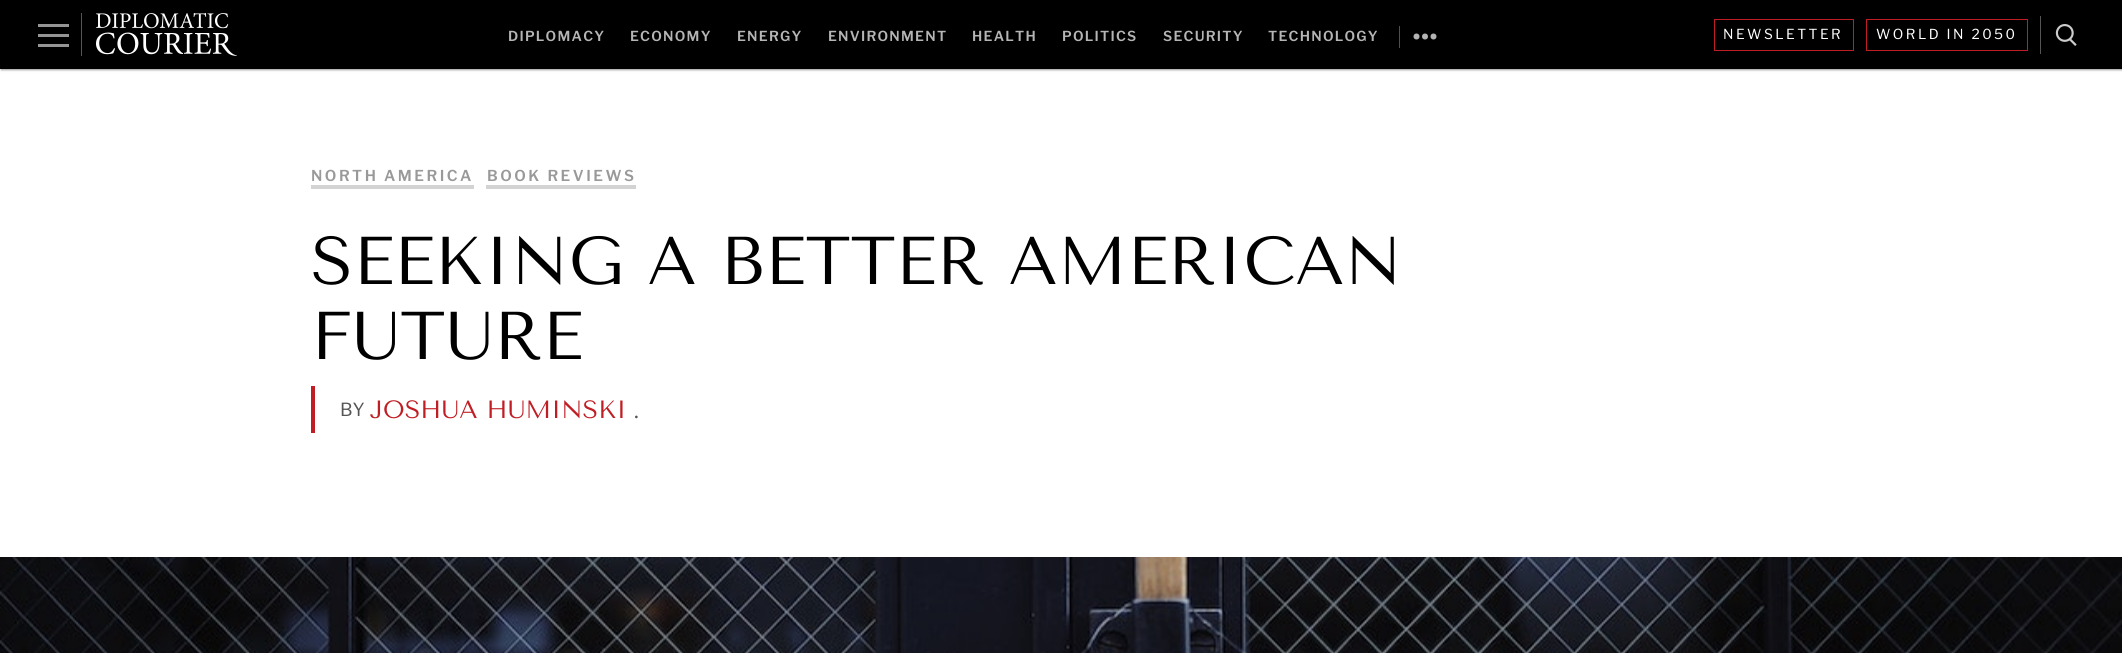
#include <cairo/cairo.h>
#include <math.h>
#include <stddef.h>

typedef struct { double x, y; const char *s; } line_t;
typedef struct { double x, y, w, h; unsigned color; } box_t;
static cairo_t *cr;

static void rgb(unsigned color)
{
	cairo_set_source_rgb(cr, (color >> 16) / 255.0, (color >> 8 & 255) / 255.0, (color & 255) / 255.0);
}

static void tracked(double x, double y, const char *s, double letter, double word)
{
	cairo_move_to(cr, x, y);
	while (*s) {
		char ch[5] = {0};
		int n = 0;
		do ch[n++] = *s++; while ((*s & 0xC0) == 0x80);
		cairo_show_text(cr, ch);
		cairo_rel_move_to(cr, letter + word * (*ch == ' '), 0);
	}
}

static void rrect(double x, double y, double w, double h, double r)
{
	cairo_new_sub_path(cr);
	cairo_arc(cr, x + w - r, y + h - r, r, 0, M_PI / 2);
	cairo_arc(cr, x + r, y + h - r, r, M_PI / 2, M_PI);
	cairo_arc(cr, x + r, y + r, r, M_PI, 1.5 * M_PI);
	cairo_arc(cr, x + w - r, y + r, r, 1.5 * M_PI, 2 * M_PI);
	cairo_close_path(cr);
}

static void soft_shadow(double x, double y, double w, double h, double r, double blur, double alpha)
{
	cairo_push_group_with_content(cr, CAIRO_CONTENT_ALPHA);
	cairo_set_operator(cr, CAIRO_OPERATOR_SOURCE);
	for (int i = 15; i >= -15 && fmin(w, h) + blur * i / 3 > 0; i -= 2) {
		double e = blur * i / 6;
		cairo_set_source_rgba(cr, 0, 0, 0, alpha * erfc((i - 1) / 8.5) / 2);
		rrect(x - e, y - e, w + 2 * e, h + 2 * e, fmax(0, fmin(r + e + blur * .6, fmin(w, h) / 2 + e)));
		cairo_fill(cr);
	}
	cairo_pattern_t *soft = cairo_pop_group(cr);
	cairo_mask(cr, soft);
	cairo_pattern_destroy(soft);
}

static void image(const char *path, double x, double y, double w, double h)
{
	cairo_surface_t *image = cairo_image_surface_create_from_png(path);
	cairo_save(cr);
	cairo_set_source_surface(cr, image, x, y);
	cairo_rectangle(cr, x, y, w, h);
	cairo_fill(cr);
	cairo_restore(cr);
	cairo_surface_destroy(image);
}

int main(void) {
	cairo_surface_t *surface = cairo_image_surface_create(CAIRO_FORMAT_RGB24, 2122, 653);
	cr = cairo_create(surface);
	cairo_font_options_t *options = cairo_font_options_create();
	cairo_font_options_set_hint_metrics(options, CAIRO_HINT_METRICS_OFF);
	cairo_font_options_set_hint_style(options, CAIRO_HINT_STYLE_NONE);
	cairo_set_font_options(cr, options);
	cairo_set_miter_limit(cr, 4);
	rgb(0xffffff);
	cairo_paint(cr);
	rgb(0x000000);
	soft_shadow(1, 1, 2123, 69, 0, 1, 0.4);
	{
		static const box_t items[] = {
			{0, 0, 2122, 69, 0x000000},
			{38, 24, 31, 3, 0x949494},
			{38, 34, 31, 3, 0x949494},
			{38, 44, 31, 3, 0x949494},
			{81, 13, 1, 43, 0x555555},
		};
		for (size_t i = 0; i < sizeof items / sizeof *items; i++) {
			rgb(items[i].color);
			cairo_rectangle(cr, items[i].x, items[i].y, items[i].w, items[i].h);
			cairo_fill(cr);
		}
	}
	image("img/1.png", 95, 13, 142, 43);
	rgb(0xbf1e24);
	cairo_rectangle(cr, 1399, 26, 1, 22);
	cairo_fill(cr);
	rgb(0xb3b3b3);
	cairo_arc(cr, 1433.5, 36.5, 3, 0, 2 * M_PI);
	cairo_fill(cr);
	cairo_arc(cr, 1416.5, 36.5, 3, 0, 2 * M_PI);
	cairo_fill(cr);
	cairo_arc(cr, 1425, 36.5, 3, 0, 2 * M_PI);
	cairo_fill(cr);
	cairo_rectangle(cr, 1714.5, 19.5, 139, 31);
	rgb(0xbf1e24);
	cairo_set_line_width(cr, 1);
	cairo_stroke(cr);
	cairo_rectangle(cr, 1866.5, 19.5, 161, 31);
	cairo_stroke(cr);
	rgb(0x555555);
	cairo_rectangle(cr, 2040, 16, 1, 38);
	cairo_fill(cr);
	image("img/2.png", 2055, 24, 22, 22);
	{
		static const box_t items[] = {
			{311, 185, 163, 4, 0xd3d3d3},
			{486, 185, 150, 4, 0xd3d3d3},
			{311, 386, 4, 47, 0xbf1e24},
		};
		for (size_t i = 0; i < sizeof items / sizeof *items; i++) {
			rgb(items[i].color);
			cairo_rectangle(cr, items[i].x, items[i].y, items[i].w, items[i].h);
			cairo_fill(cr);
		}
	}
	image("img/3.png", 0, 557, 2122, 96);
	cairo_select_font_face(cr, "Libre Franklin SemiBold", CAIRO_FONT_SLANT_NORMAL, CAIRO_FONT_WEIGHT_NORMAL);
	cairo_set_font_size(cr, 13.75);
	rgb(0xb5b5b5);
	{
		static const line_t items[] = {
			{508, 41, "DIPLOMACY"},
			{630, 41, "ECONOMY"},
			{737, 41, "ENERGY"},
			{828, 41, "ENVIRONMENT"},
			{972, 41, "HEALTH"},
			{1062, 41, "POLITICS"},
			{1163, 41, "SECURITY"},
			{1268, 41, "TECHNOLOGY"},
		};
		for (size_t i = 0; i < sizeof items / sizeof *items; i++) {
			tracked(items[i].x, items[i].y, items[i].s, 1.25, 0);
		}
	}
	cairo_select_font_face(cr, "Libre Franklin", CAIRO_FONT_SLANT_NORMAL, CAIRO_FONT_WEIGHT_NORMAL);
	rgb(0xffffff);
	tracked(1723, 39, "NEWSLETTER", 2.5, 0);
	tracked(1876, 39, "WORLD IN 2050", 2.5, 0);
	cairo_select_font_face(cr, "Libre Franklin SemiBold", CAIRO_FONT_SLANT_NORMAL, CAIRO_FONT_WEIGHT_NORMAL);
	cairo_set_font_size(cr, 15);
	rgb(0x999999);
	tracked(311, 181, "NORTH AMERICA", 2.5, 0);
	tracked(487, 181, "BOOK REVIEWS", 2.5, 0);
	cairo_select_font_face(cr, "Tenor Sans", CAIRO_FONT_SLANT_NORMAL, CAIRO_FONT_WEIGHT_NORMAL);
	cairo_set_font_size(cr, 67.5);
	rgb(0x000000);
	cairo_move_to(cr, 311, 284);
	cairo_show_text(cr, "SEEKING A BETTER AMERICAN");
	cairo_move_to(cr, 311, 359);
	cairo_show_text(cr, "FUTURE");
	cairo_select_font_face(cr, "Libre Franklin", CAIRO_FONT_SLANT_NORMAL, CAIRO_FONT_WEIGHT_NORMAL);
	cairo_set_font_size(cr, 18);
	rgb(0x555555);
	cairo_move_to(cr, 340, 416);
	cairo_show_text(cr, "BY");
	cairo_select_font_face(cr, "Tenor Sans", CAIRO_FONT_SLANT_NORMAL, CAIRO_FONT_WEIGHT_NORMAL);
	cairo_set_font_size(cr, 25);
	rgb(0xbf1e24);
	cairo_move_to(cr, 370, 418);
	cairo_show_text(cr, "JOSHUA HUMINSKI");
	rgb(0x555555);
	cairo_move_to(cr, 633, 418);
	cairo_show_text(cr, ".");
	cairo_surface_write_to_png(surface, "page.png");
	cairo_font_options_destroy(options);
	cairo_destroy(cr);
	cairo_surface_destroy(surface);
	return 0;
}
